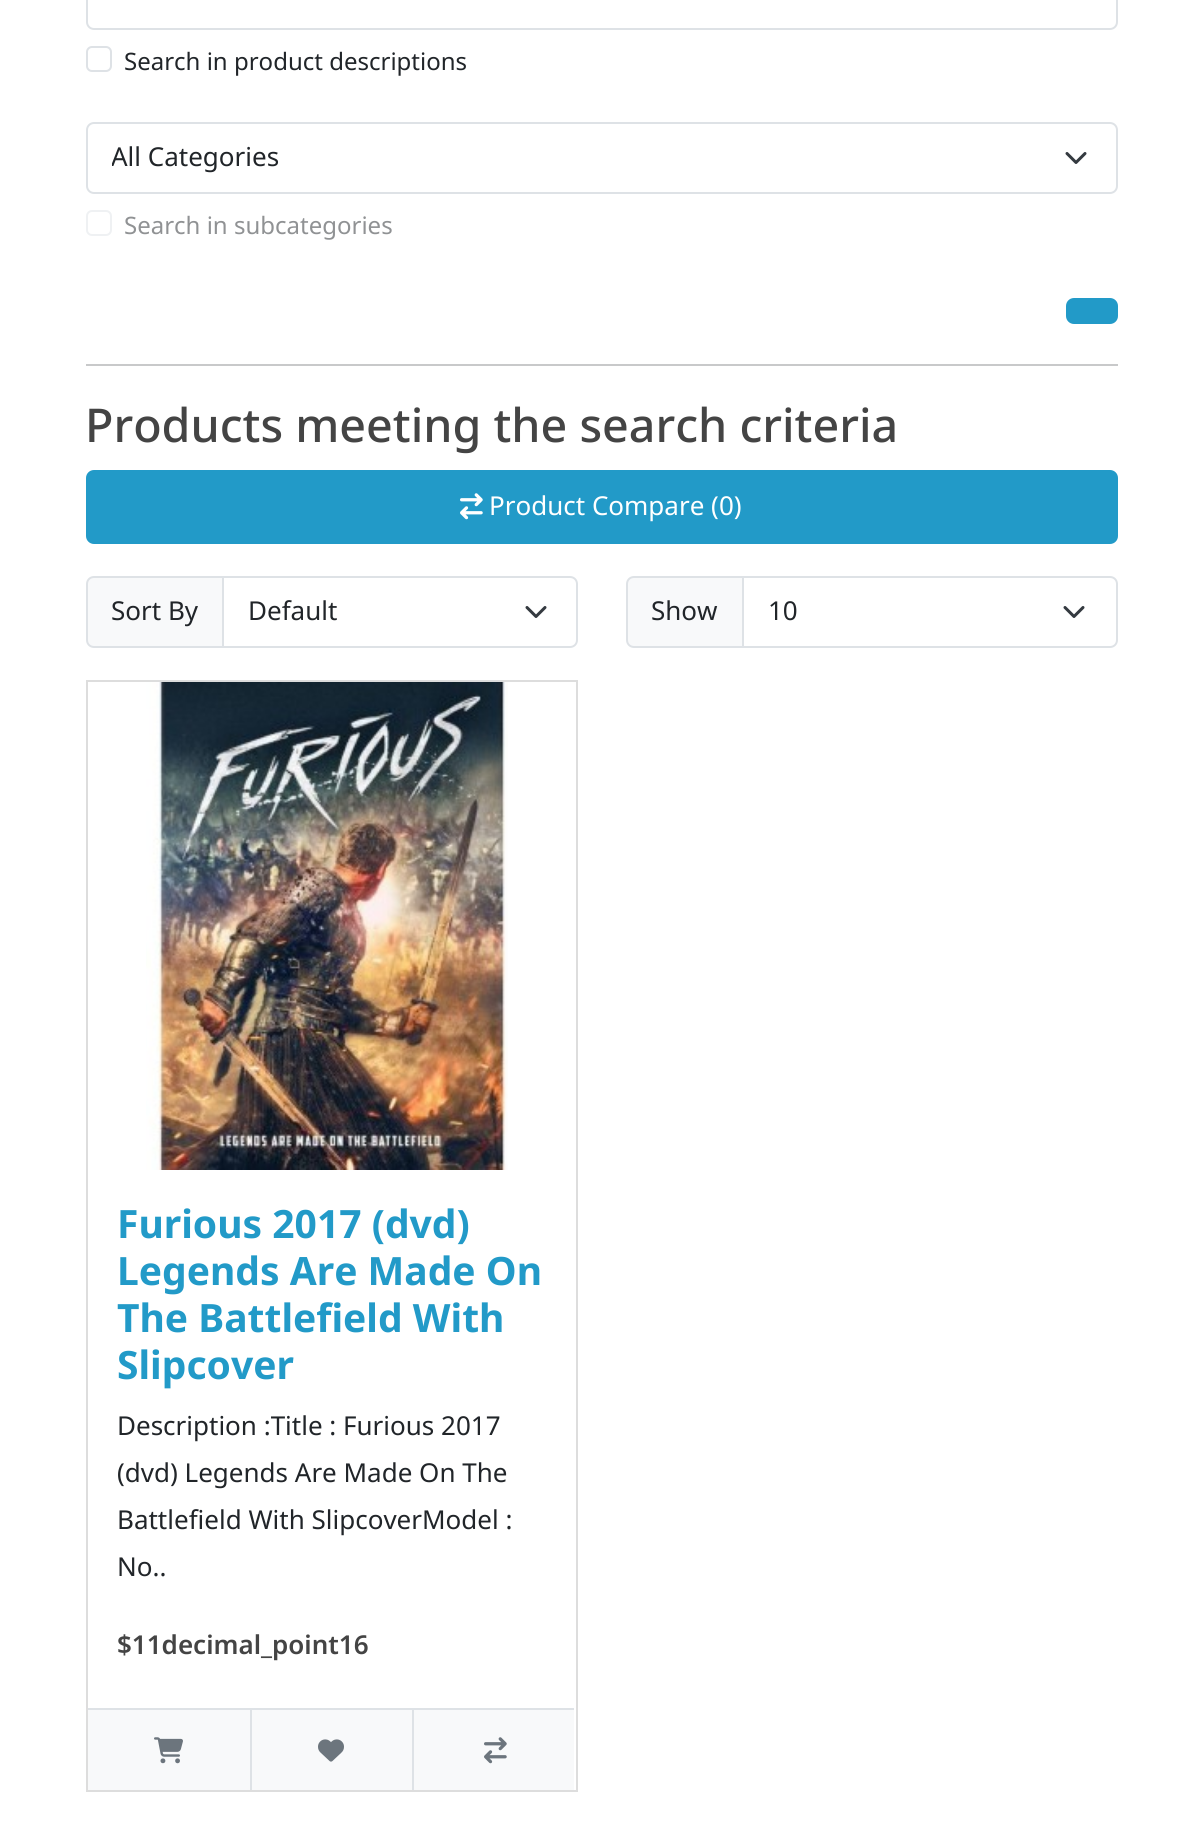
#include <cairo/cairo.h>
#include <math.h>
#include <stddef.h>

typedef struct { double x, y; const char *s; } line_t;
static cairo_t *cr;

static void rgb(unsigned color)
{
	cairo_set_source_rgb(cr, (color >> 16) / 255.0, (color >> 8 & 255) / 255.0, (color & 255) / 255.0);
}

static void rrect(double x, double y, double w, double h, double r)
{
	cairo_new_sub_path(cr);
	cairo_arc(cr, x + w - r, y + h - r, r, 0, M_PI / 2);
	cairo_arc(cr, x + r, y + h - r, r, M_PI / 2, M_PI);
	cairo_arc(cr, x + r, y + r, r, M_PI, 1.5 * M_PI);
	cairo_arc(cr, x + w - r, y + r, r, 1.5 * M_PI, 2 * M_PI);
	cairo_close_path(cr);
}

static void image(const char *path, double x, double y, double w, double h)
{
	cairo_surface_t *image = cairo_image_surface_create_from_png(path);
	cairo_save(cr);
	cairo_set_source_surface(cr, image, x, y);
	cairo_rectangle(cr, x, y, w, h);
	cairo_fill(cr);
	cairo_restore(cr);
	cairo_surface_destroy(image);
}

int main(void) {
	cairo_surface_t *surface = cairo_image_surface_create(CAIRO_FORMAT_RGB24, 1201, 1837);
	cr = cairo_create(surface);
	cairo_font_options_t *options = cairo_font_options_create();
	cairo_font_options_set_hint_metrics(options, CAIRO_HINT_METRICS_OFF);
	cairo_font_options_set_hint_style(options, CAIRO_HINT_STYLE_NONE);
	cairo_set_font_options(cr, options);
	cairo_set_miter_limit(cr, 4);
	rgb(0xffffff);
	cairo_paint(cr);
	rrect(87, -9, 1030, 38, 7);
	rgb(0xdee2e6);
	cairo_stroke(cr);
	rrect(87, 47, 24, 24, 5);
	cairo_stroke(cr);
	cairo_new_path(cr);
	cairo_move_to(cr, 1067, 153.5);
	cairo_line_to(cr, 1076, 162.5);
	cairo_line_to(cr, 1085, 153.5);
	rgb(0x343a40);
	cairo_set_line_width(cr, 3);
	cairo_set_line_cap(cr, CAIRO_LINE_CAP_ROUND);
	cairo_set_line_join(cr, CAIRO_LINE_JOIN_ROUND);
	cairo_stroke(cr);
	rrect(87, 123, 1030, 70, 7);
	rgb(0xdee2e6);
	cairo_set_line_width(cr, 2);
	cairo_set_line_cap(cr, CAIRO_LINE_CAP_BUTT);
	cairo_set_line_join(cr, CAIRO_LINE_JOIN_MITER);
	cairo_stroke(cr);
	rrect(87, 211, 24, 24, 5);
	rgb(0xeff1f3);
	cairo_stroke(cr);
	rgb(0x229ac8);
	rrect(1067, 299, 50, 24, 7);
	cairo_fill_preserve(cr);
	cairo_stroke(cr);
	rgb(0xc8c9ca);
	cairo_rectangle(cr, 86, 364, 1032, 2);
	cairo_fill(cr);
	rgb(0x229ac8);
	rrect(87, 471, 1030, 72, 7);
	cairo_fill_preserve(cr);
	cairo_stroke(cr);
	image("img/1.png", 460, 493, 23, 27);
	rgb(0xf8f9fa);
	cairo_new_path(cr);
	cairo_move_to(cr, 94, 577);
	cairo_line_to(cr, 223, 577);
	cairo_line_to(cr, 223, 647);
	cairo_line_to(cr, 94, 647);
	cairo_curve_to(cr, 90, 647, 87, 644, 87, 640);
	cairo_line_to(cr, 87, 584);
	cairo_curve_to(cr, 87, 580, 90, 577, 94, 577);
	cairo_close_path(cr);
	cairo_fill_preserve(cr);
	rgb(0xdee2e6);
	cairo_stroke(cr);
	rgb(0xffffff);
	cairo_new_path(cr);
	cairo_move_to(cr, 222, 576);
	cairo_line_to(cr, 570, 576);
	cairo_curve_to(cr, 574.5, 576, 578, 579.5, 578, 584);
	cairo_line_to(cr, 578, 640);
	cairo_curve_to(cr, 578, 644.5, 574.5, 648, 570, 648);
	cairo_line_to(cr, 222, 648);
	cairo_close_path(cr);
	cairo_fill(cr);
	cairo_new_path(cr);
	cairo_move_to(cr, 527, 607.5);
	cairo_line_to(cr, 536, 616.5);
	cairo_line_to(cr, 545, 607.5);
	rgb(0x343a40);
	cairo_set_line_width(cr, 3);
	cairo_set_line_cap(cr, CAIRO_LINE_CAP_ROUND);
	cairo_set_line_join(cr, CAIRO_LINE_JOIN_ROUND);
	cairo_stroke(cr);
	cairo_new_path(cr);
	cairo_move_to(cr, 223, 577);
	cairo_line_to(cr, 570, 577);
	cairo_curve_to(cr, 574, 577, 577, 580, 577, 584);
	cairo_line_to(cr, 577, 640);
	cairo_curve_to(cr, 577, 644, 574, 647, 570, 647);
	cairo_line_to(cr, 223, 647);
	cairo_close_path(cr);
	rgb(0xdee2e6);
	cairo_set_line_width(cr, 2);
	cairo_set_line_cap(cr, CAIRO_LINE_CAP_BUTT);
	cairo_set_line_join(cr, CAIRO_LINE_JOIN_MITER);
	cairo_stroke(cr);
	rgb(0xf8f9fa);
	cairo_new_path(cr);
	cairo_move_to(cr, 634, 577);
	cairo_line_to(cr, 743, 577);
	cairo_line_to(cr, 743, 647);
	cairo_line_to(cr, 634, 647);
	cairo_curve_to(cr, 630, 647, 627, 644, 627, 640);
	cairo_line_to(cr, 627, 584);
	cairo_curve_to(cr, 627, 580, 630, 577, 634, 577);
	cairo_close_path(cr);
	cairo_fill_preserve(cr);
	rgb(0xdee2e6);
	cairo_stroke(cr);
	rgb(0xffffff);
	cairo_new_path(cr);
	cairo_move_to(cr, 742, 576);
	cairo_line_to(cr, 1110, 576);
	cairo_curve_to(cr, 1114.5, 576, 1118, 579.5, 1118, 584);
	cairo_line_to(cr, 1118, 640);
	cairo_curve_to(cr, 1118, 644.5, 1114.5, 648, 1110, 648);
	cairo_line_to(cr, 742, 648);
	cairo_close_path(cr);
	cairo_fill(cr);
	cairo_new_path(cr);
	cairo_move_to(cr, 1065, 607.5);
	cairo_line_to(cr, 1074, 616.5);
	cairo_line_to(cr, 1083, 607.5);
	rgb(0x343a40);
	cairo_set_line_width(cr, 3);
	cairo_set_line_cap(cr, CAIRO_LINE_CAP_ROUND);
	cairo_set_line_join(cr, CAIRO_LINE_JOIN_ROUND);
	cairo_stroke(cr);
	cairo_new_path(cr);
	cairo_move_to(cr, 743, 577);
	cairo_line_to(cr, 1110, 577);
	cairo_curve_to(cr, 1114, 577, 1117, 580, 1117, 584);
	cairo_line_to(cr, 1117, 640);
	cairo_curve_to(cr, 1117, 644, 1114, 647, 1110, 647);
	cairo_line_to(cr, 743, 647);
	cairo_close_path(cr);
	rgb(0xdee2e6);
	cairo_set_line_width(cr, 2);
	cairo_set_line_cap(cr, CAIRO_LINE_CAP_BUTT);
	cairo_set_line_join(cr, CAIRO_LINE_JOIN_MITER);
	cairo_stroke(cr);
	cairo_rectangle(cr, 87, 681, 490, 1110);
	rgb(0xdddddd);
	cairo_stroke(cr);
	image("img/2.png", 146, 682, 362, 488);
	rgb(0xf8f9fa);
	cairo_rectangle(cr, 88, 1710, 162, 80);
	cairo_fill(cr);
	rgb(0xdee2e6);
	cairo_rectangle(cr, 88, 1708, 486, 2);
	cairo_fill(cr);
	image("img/3.png", 154, 1737, 29, 27);
	rgb(0xf8f9fa);
	cairo_rectangle(cr, 252, 1710, 160, 80);
	cairo_fill(cr);
	rgb(0xdee2e6);
	cairo_rectangle(cr, 250, 1708, 2, 82);
	cairo_fill(cr);
	image("img/4.png", 318, 1739, 26, 23);
	rgb(0xf8f9fa);
	cairo_rectangle(cr, 414, 1710, 160, 80);
	cairo_fill(cr);
	rgb(0xdee2e6);
	cairo_rectangle(cr, 412, 1708, 2, 82);
	cairo_fill(cr);
	image("img/5.png", 484, 1737, 23, 27);
	cairo_select_font_face(cr, "Noto Sans", CAIRO_FONT_SLANT_NORMAL, CAIRO_FONT_WEIGHT_NORMAL);
	cairo_set_font_size(cr, 24);
	rgb(0x212529);
	cairo_move_to(cr, 124, 70);
	cairo_show_text(cr, "Search in product descriptions");
	cairo_save(cr);
	cairo_rectangle(cr, 112, 134, 932, 48);
	cairo_clip(cr);
	cairo_set_font_size(cr, 26);
	cairo_move_to(cr, 111, 166);
	cairo_show_text(cr, "All Categories");
	cairo_restore(cr);
	rgb(0x909294);
	cairo_move_to(cr, 124, 234);
	cairo_show_text(cr, "Search in subcategories");
	cairo_select_font_face(cr, "Noto Sans Medium", CAIRO_FONT_SLANT_NORMAL, CAIRO_FONT_WEIGHT_NORMAL);
	cairo_set_font_size(cr, 46.6);
	rgb(0x444444);
	cairo_move_to(cr, 85, 442);
	cairo_show_text(cr, "Products meeting the search criteria");
	cairo_select_font_face(cr, "Noto Sans", CAIRO_FONT_SLANT_NORMAL, CAIRO_FONT_WEIGHT_NORMAL);
	cairo_set_font_size(cr, 26);
	rgb(0xffffff);
	cairo_move_to(cr, 489, 515);
	cairo_show_text(cr, "Product Compare (0)");
	rgb(0x212529);
	{
		static const line_t items[] = {
			{111, 620, "Sort By"},
			{248, 620, "Default"},
			{651, 620, "Show"},
			{768, 620, "10"},
		};
		for (size_t i = 0; i < sizeof items / sizeof *items; i++) {
			cairo_move_to(cr, items[i].x, items[i].y);
			cairo_show_text(cr, items[i].s);
		}
	}
	cairo_select_font_face(cr, "Noto Sans", CAIRO_FONT_SLANT_NORMAL, CAIRO_FONT_WEIGHT_BOLD);
	cairo_set_font_size(cr, 39);
	rgb(0x229ac8);
	{
		static const line_t items[] = {
			{117, 1238, "Furious 2017 (dvd)"},
			{117, 1285, "Legends Are Made On"},
			{117, 1332, "The Battlefield With"},
			{117, 1379, "Slipcover"},
		};
		for (size_t i = 0; i < sizeof items / sizeof *items; i++) {
			cairo_move_to(cr, items[i].x, items[i].y);
			cairo_show_text(cr, items[i].s);
		}
	}
	cairo_select_font_face(cr, "Noto Sans", CAIRO_FONT_SLANT_NORMAL, CAIRO_FONT_WEIGHT_NORMAL);
	cairo_set_font_size(cr, 26);
	rgb(0x212529);
	{
		static const line_t items[] = {
			{117, 1435, "Description :Title : Furious 2017"},
			{117, 1482, "(dvd) Legends Are Made On The"},
			{117, 1529, "Battlefield With SlipcoverModel :"},
			{117, 1576, "No.."},
		};
		for (size_t i = 0; i < sizeof items / sizeof *items; i++) {
			cairo_move_to(cr, items[i].x, items[i].y);
			cairo_show_text(cr, items[i].s);
		}
	}
	cairo_select_font_face(cr, "Noto Sans SemiBold", CAIRO_FONT_SLANT_NORMAL, CAIRO_FONT_WEIGHT_NORMAL);
	rgb(0x444444);
	cairo_move_to(cr, 117, 1654);
	cairo_show_text(cr, "$11decimal_point16");
	cairo_surface_write_to_png(surface, "page.png");
	cairo_font_options_destroy(options);
	cairo_destroy(cr);
	cairo_surface_destroy(surface);
	return 0;
}
